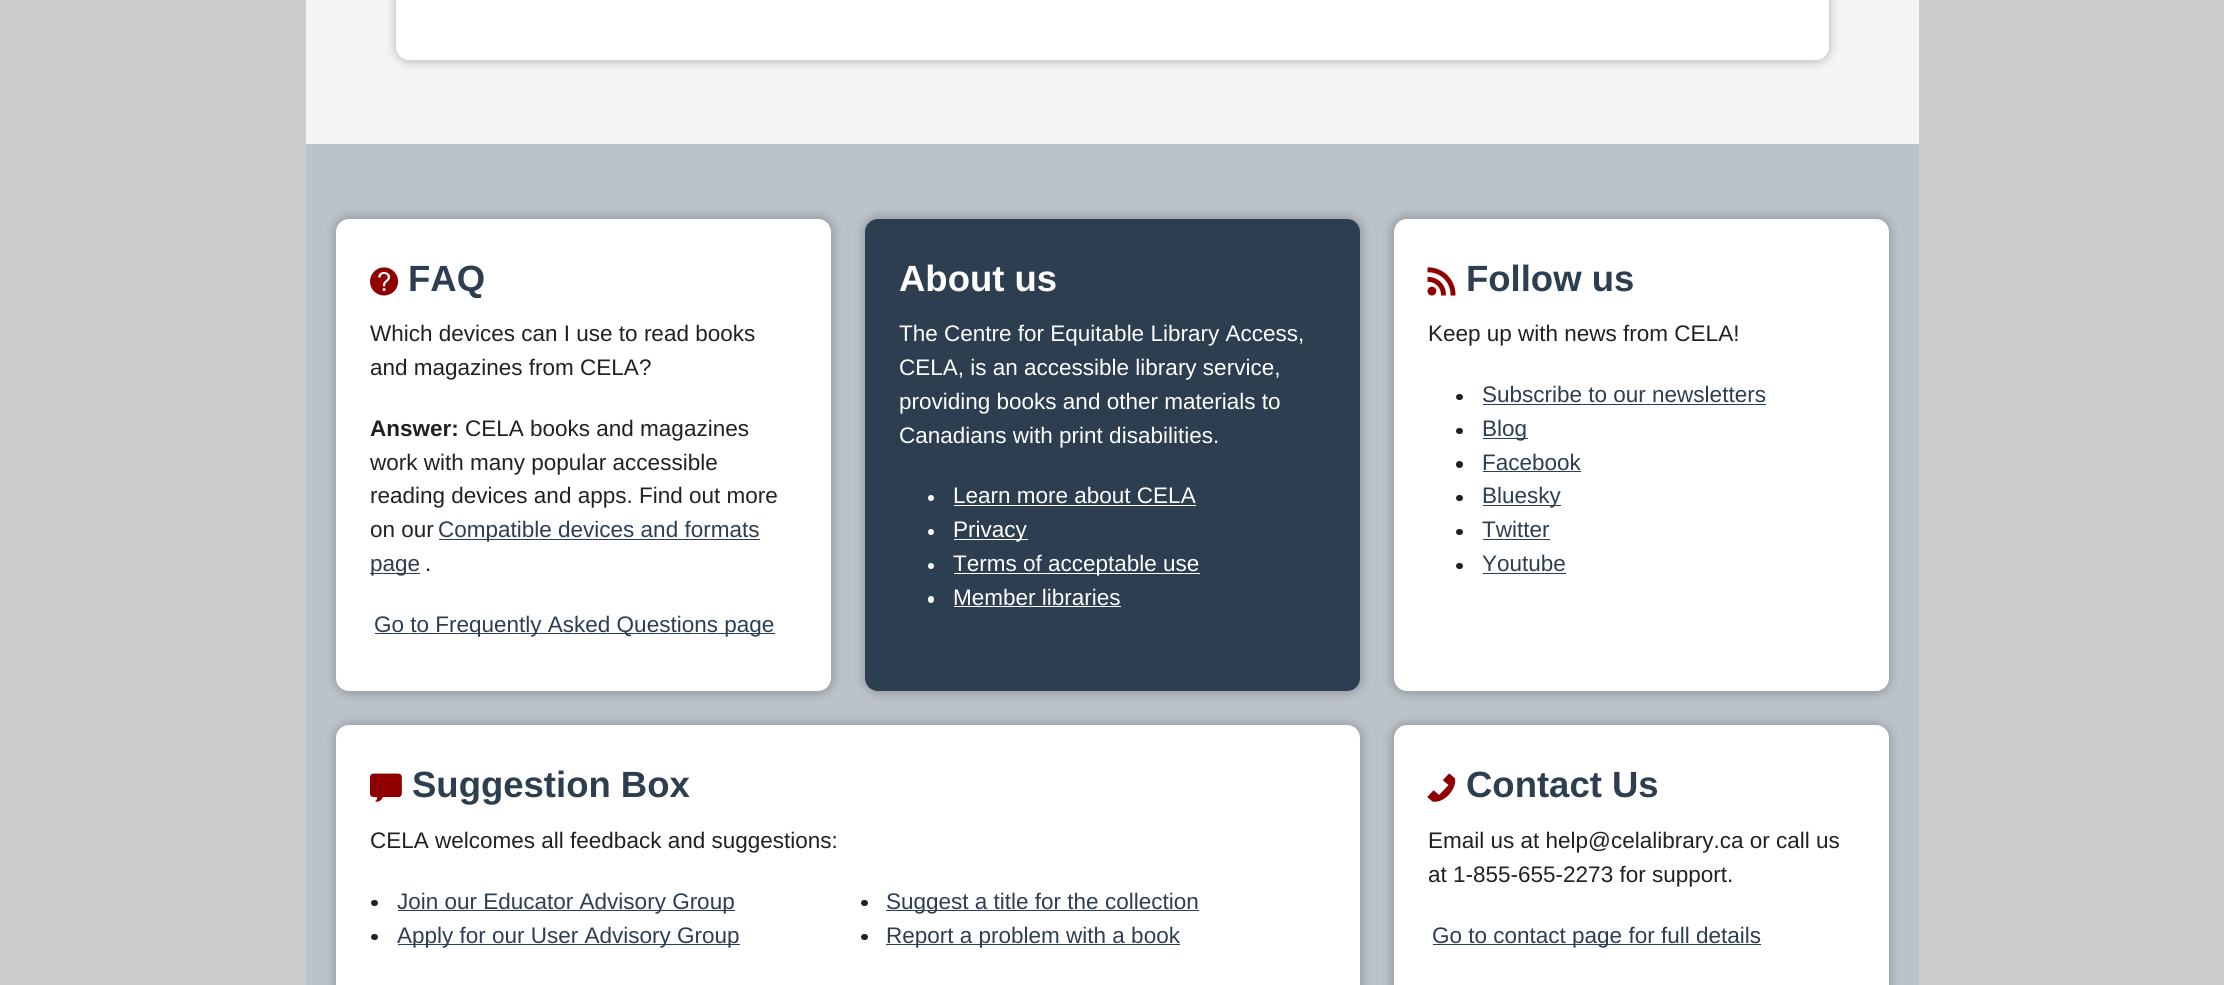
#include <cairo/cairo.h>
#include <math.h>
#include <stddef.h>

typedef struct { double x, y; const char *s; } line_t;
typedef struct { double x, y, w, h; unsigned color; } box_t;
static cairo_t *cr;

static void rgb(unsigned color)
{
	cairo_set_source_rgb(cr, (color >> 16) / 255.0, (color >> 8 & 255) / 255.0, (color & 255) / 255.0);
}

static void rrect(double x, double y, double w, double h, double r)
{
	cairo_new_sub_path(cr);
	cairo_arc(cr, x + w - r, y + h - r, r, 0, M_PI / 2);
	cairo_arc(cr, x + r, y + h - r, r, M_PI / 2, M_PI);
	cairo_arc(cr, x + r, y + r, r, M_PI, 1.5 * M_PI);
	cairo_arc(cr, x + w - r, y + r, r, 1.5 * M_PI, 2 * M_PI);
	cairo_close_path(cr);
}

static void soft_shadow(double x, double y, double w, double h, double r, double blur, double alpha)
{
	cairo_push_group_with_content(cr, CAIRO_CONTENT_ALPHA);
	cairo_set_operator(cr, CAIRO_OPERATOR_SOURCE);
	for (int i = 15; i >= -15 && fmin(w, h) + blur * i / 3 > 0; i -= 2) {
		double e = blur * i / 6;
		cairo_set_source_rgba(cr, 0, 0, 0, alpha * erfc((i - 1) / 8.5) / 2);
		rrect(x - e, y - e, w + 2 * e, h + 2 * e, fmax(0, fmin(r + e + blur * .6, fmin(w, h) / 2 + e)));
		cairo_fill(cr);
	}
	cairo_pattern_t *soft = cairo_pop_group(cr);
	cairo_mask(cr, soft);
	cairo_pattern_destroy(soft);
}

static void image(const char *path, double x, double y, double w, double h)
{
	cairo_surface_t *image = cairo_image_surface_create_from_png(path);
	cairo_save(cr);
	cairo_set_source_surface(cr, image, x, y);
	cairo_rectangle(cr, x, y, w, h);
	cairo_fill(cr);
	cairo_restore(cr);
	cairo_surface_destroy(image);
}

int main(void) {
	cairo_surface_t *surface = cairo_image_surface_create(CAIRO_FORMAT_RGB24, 2224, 985);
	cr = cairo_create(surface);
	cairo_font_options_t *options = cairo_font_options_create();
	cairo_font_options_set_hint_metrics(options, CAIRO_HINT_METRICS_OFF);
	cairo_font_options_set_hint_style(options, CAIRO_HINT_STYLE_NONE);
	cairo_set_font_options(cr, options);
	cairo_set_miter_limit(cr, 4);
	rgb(0xcdcdcd);
	cairo_paint(cr);
	rgb(0xf4f4f4);
	cairo_rectangle(cr, 306, 0, 1613, 144);
	cairo_fill(cr);
	rgb(0x000000);
	soft_shadow(394, -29, 1437, 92, 15, 4.5, 0.2);
	rgb(0xffffff);
	rrect(396, -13, 1433, 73, 13);
	cairo_fill(cr);
	rgb(0xbbc2c9);
	cairo_rectangle(cr, 306, 144, 1613, 841);
	cairo_fill(cr);
	rgb(0x000000);
	soft_shadow(334, 216, 500, 478, 15, 4.5, 0.2);
	rgb(0xffffff);
	rrect(336, 219, 495, 472, 13);
	cairo_fill(cr);
	image("img/1.png", 370, 267, 29, 29);
	{
		static const box_t items[] = {
			{439, 539, 321, 1, 0x2c3e50},
			{370, 573, 50, 1, 0x2c3e50},
			{375, 633, 400, 1, 0x2c3e50},
		};
		for (size_t i = 0; i < sizeof items / sizeof *items; i++) {
			rgb(items[i].color);
			cairo_rectangle(cr, items[i].x, items[i].y, items[i].w, items[i].h);
			cairo_fill(cr);
		}
	}
	rgb(0x000000);
	soft_shadow(863, 216, 500, 478, 15, 4.5, 0.2);
	rgb(0x2c3e50);
	rrect(865, 219, 495, 472, 13);
	cairo_fill(cr);
	rgb(0xffffff);
	cairo_arc(cr, 931, 498, 3, 0, 2 * M_PI);
	cairo_fill(cr);
	cairo_rectangle(cr, 954, 505, 242, 1);
	cairo_fill(cr);
	cairo_arc(cr, 931, 532, 3, 0, 2 * M_PI);
	cairo_fill(cr);
	cairo_rectangle(cr, 954, 539, 74, 1);
	cairo_fill(cr);
	cairo_arc(cr, 931, 566, 3, 0, 2 * M_PI);
	cairo_fill(cr);
	cairo_rectangle(cr, 954, 573, 246, 1);
	cairo_fill(cr);
	rrect(928, 596, 6, 7, 3);
	cairo_fill(cr);
	cairo_rectangle(cr, 954, 606, 167, 1);
	cairo_fill(cr);
	rgb(0x000000);
	soft_shadow(1391, 216, 500, 478, 15, 4.5, 0.2);
	rgb(0xffffff);
	rrect(1394, 219, 495, 472, 13);
	cairo_fill(cr);
	image("img/2.png", 1427, 267, 29, 29);
	rgb(0x212121);
	rrect(1456, 394, 7, 6, 3);
	cairo_fill(cr);
	rgb(0x2c3e50);
	cairo_rectangle(cr, 1483, 404, 283, 1);
	cairo_fill(cr);
	rgb(0x212121);
	rrect(1456, 428, 7, 6, 3);
	cairo_fill(cr);
	rgb(0x2c3e50);
	cairo_rectangle(cr, 1483, 438, 45, 1);
	cairo_fill(cr);
	rgb(0x212121);
	cairo_arc(cr, 1459.5, 464.5, 3.5, 0, 2 * M_PI);
	cairo_fill(cr);
	rgb(0x2c3e50);
	cairo_rectangle(cr, 1483, 471, 98, 1);
	cairo_fill(cr);
	rgb(0x212121);
	rrect(1456, 495, 7, 6, 3);
	cairo_fill(cr);
	rgb(0x2c3e50);
	cairo_rectangle(cr, 1483, 505, 78, 1);
	cairo_fill(cr);
	rgb(0x212121);
	rrect(1456, 529, 7, 6, 3);
	cairo_fill(cr);
	rgb(0x2c3e50);
	cairo_rectangle(cr, 1483, 539, 67, 1);
	cairo_fill(cr);
	rgb(0x212121);
	rrect(1456, 563, 7, 6, 3);
	cairo_fill(cr);
	rgb(0x2c3e50);
	cairo_rectangle(cr, 1483, 573, 83, 1);
	cairo_fill(cr);
	rgb(0x000000);
	soft_shadow(334, 723, 1029, 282, 15, 4.5, 0.2);
	rgb(0xffffff);
	rrect(336, 725, 1024, 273, 13);
	cairo_fill(cr);
	image("img/3.png", 370, 773, 32, 29);
	rgb(0x212121);
	rrect(371, 900, 7, 6, 3);
	cairo_fill(cr);
	rgb(0x2c3e50);
	cairo_rectangle(cr, 398, 910, 337, 1);
	cairo_fill(cr);
	rgb(0x212121);
	rrect(861, 900, 7, 6, 3);
	cairo_fill(cr);
	rgb(0x2c3e50);
	cairo_rectangle(cr, 886, 910, 313, 1);
	cairo_fill(cr);
	rgb(0x212121);
	rrect(371, 934, 7, 6, 3);
	cairo_fill(cr);
	rgb(0x2c3e50);
	cairo_rectangle(cr, 398, 944, 342, 1);
	cairo_fill(cr);
	rgb(0x212121);
	rrect(861, 934, 7, 6, 3);
	cairo_fill(cr);
	rgb(0x2c3e50);
	cairo_rectangle(cr, 886, 944, 294, 1);
	cairo_fill(cr);
	rgb(0x000000);
	soft_shadow(1391, 723, 500, 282, 15, 4.5, 0.2);
	rgb(0xffffff);
	rrect(1394, 725, 495, 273, 13);
	cairo_fill(cr);
	image("img/4.png", 1427, 773, 29, 29);
	rgb(0x2c3e50);
	cairo_rectangle(cr, 1433, 944, 328, 1);
	cairo_fill(cr);
	cairo_select_font_face(cr, "Liberation Sans", CAIRO_FONT_SLANT_NORMAL, CAIRO_FONT_WEIGHT_BOLD);
	cairo_set_font_size(cr, 36.5);
	cairo_move_to(cr, 408, 291);
	cairo_show_text(cr, "FAQ");
	cairo_select_font_face(cr, "Liberation Sans", CAIRO_FONT_SLANT_NORMAL, CAIRO_FONT_WEIGHT_NORMAL);
	cairo_set_font_size(cr, 22.5);
	rgb(0x212121);
	cairo_move_to(cr, 370, 341);
	cairo_show_text(cr, "Which devices can I use to read books");
	cairo_move_to(cr, 370, 375);
	cairo_show_text(cr, "and magazines from CELA?");
	cairo_select_font_face(cr, "Liberation Sans", CAIRO_FONT_SLANT_NORMAL, CAIRO_FONT_WEIGHT_BOLD);
	cairo_move_to(cr, 370, 436);
	cairo_show_text(cr, "Answer:");
	cairo_select_font_face(cr, "Liberation Sans", CAIRO_FONT_SLANT_NORMAL, CAIRO_FONT_WEIGHT_NORMAL);
	{
		static const line_t items[] = {
			{465, 436, "CELA books and magazines"},
			{370, 470, "work with many popular accessible"},
			{370, 503, "reading devices and apps. Find out more"},
			{370, 537, "on our"},
		};
		for (size_t i = 0; i < sizeof items / sizeof *items; i++) {
			cairo_move_to(cr, items[i].x, items[i].y);
			cairo_show_text(cr, items[i].s);
		}
	}
	rgb(0x2c3e50);
	cairo_move_to(cr, 438, 537);
	cairo_show_text(cr, "Compatible devices and formats");
	cairo_move_to(cr, 370, 571);
	cairo_show_text(cr, "page");
	rgb(0x212121);
	cairo_move_to(cr, 425, 571);
	cairo_show_text(cr, ".");
	rgb(0x2c3e50);
	cairo_move_to(cr, 374, 632);
	cairo_show_text(cr, "Go to Frequently Asked Questions page");
	cairo_select_font_face(cr, "Liberation Sans", CAIRO_FONT_SLANT_NORMAL, CAIRO_FONT_WEIGHT_BOLD);
	cairo_set_font_size(cr, 36.5);
	rgb(0xffffff);
	cairo_move_to(cr, 899, 291);
	cairo_show_text(cr, "About us");
	cairo_select_font_face(cr, "Liberation Sans", CAIRO_FONT_SLANT_NORMAL, CAIRO_FONT_WEIGHT_NORMAL);
	cairo_set_font_size(cr, 22.5);
	{
		static const line_t items[] = {
			{899, 341, "The Centre for Equitable Library Access,"},
			{899, 375, "CELA, is an accessible library service,"},
			{899, 409, "providing books and other materials to"},
			{899, 443, "Canadians with print disabilities."},
			{953, 503, "Learn more about CELA"},
			{953, 537, "Privacy"},
			{953, 571, "Terms of acceptable use"},
			{953, 605, "Member libraries"},
		};
		for (size_t i = 0; i < sizeof items / sizeof *items; i++) {
			cairo_move_to(cr, items[i].x, items[i].y);
			cairo_show_text(cr, items[i].s);
		}
	}
	cairo_select_font_face(cr, "Liberation Sans", CAIRO_FONT_SLANT_NORMAL, CAIRO_FONT_WEIGHT_BOLD);
	cairo_set_font_size(cr, 36.5);
	rgb(0x2c3e50);
	cairo_move_to(cr, 1466, 291);
	cairo_show_text(cr, "Follow us");
	cairo_select_font_face(cr, "Liberation Sans", CAIRO_FONT_SLANT_NORMAL, CAIRO_FONT_WEIGHT_NORMAL);
	cairo_set_font_size(cr, 22.5);
	rgb(0x212121);
	cairo_move_to(cr, 1428, 341);
	cairo_show_text(cr, "Keep up with news from CELA!");
	rgb(0x2c3e50);
	{
		static const line_t items[] = {
			{1482, 402, "Subscribe to our newsletters"},
			{1482, 436, "Blog"},
			{1482, 470, "Facebook"},
			{1482, 503, "Bluesky"},
			{1482, 537, "Twitter"},
			{1482, 571, "Youtube"},
		};
		for (size_t i = 0; i < sizeof items / sizeof *items; i++) {
			cairo_move_to(cr, items[i].x, items[i].y);
			cairo_show_text(cr, items[i].s);
		}
	}
	cairo_select_font_face(cr, "Liberation Sans", CAIRO_FONT_SLANT_NORMAL, CAIRO_FONT_WEIGHT_BOLD);
	cairo_set_font_size(cr, 36.5);
	cairo_move_to(cr, 412, 797);
	cairo_show_text(cr, "Suggestion Box");
	cairo_select_font_face(cr, "Liberation Sans", CAIRO_FONT_SLANT_NORMAL, CAIRO_FONT_WEIGHT_NORMAL);
	cairo_set_font_size(cr, 22.5);
	rgb(0x212121);
	cairo_move_to(cr, 370, 848);
	cairo_show_text(cr, "CELA welcomes all feedback and suggestions:");
	rgb(0x2c3e50);
	{
		static const line_t items[] = {
			{397, 909, "Join our Educator Advisory Group"},
			{886, 909, "Suggest a title for the collection"},
			{397, 943, "Apply for our User Advisory Group"},
			{886, 943, "Report a problem with a book"},
		};
		for (size_t i = 0; i < sizeof items / sizeof *items; i++) {
			cairo_move_to(cr, items[i].x, items[i].y);
			cairo_show_text(cr, items[i].s);
		}
	}
	cairo_select_font_face(cr, "Liberation Sans", CAIRO_FONT_SLANT_NORMAL, CAIRO_FONT_WEIGHT_BOLD);
	cairo_set_font_size(cr, 36.5);
	cairo_move_to(cr, 1466, 797);
	cairo_show_text(cr, "Contact Us");
	cairo_select_font_face(cr, "Liberation Sans", CAIRO_FONT_SLANT_NORMAL, CAIRO_FONT_WEIGHT_NORMAL);
	cairo_set_font_size(cr, 22.5);
	rgb(0x212121);
	cairo_move_to(cr, 1428, 848);
	cairo_show_text(cr, "Email us at help@celalibrary.ca or call us");
	cairo_move_to(cr, 1428, 882);
	cairo_show_text(cr, "at 1-855-655-2273 for support.");
	rgb(0x2c3e50);
	cairo_move_to(cr, 1432, 943);
	cairo_show_text(cr, "Go to contact page for full details");
	cairo_surface_write_to_png(surface, "page.png");
	cairo_font_options_destroy(options);
	cairo_destroy(cr);
	cairo_surface_destroy(surface);
	return 0;
}
